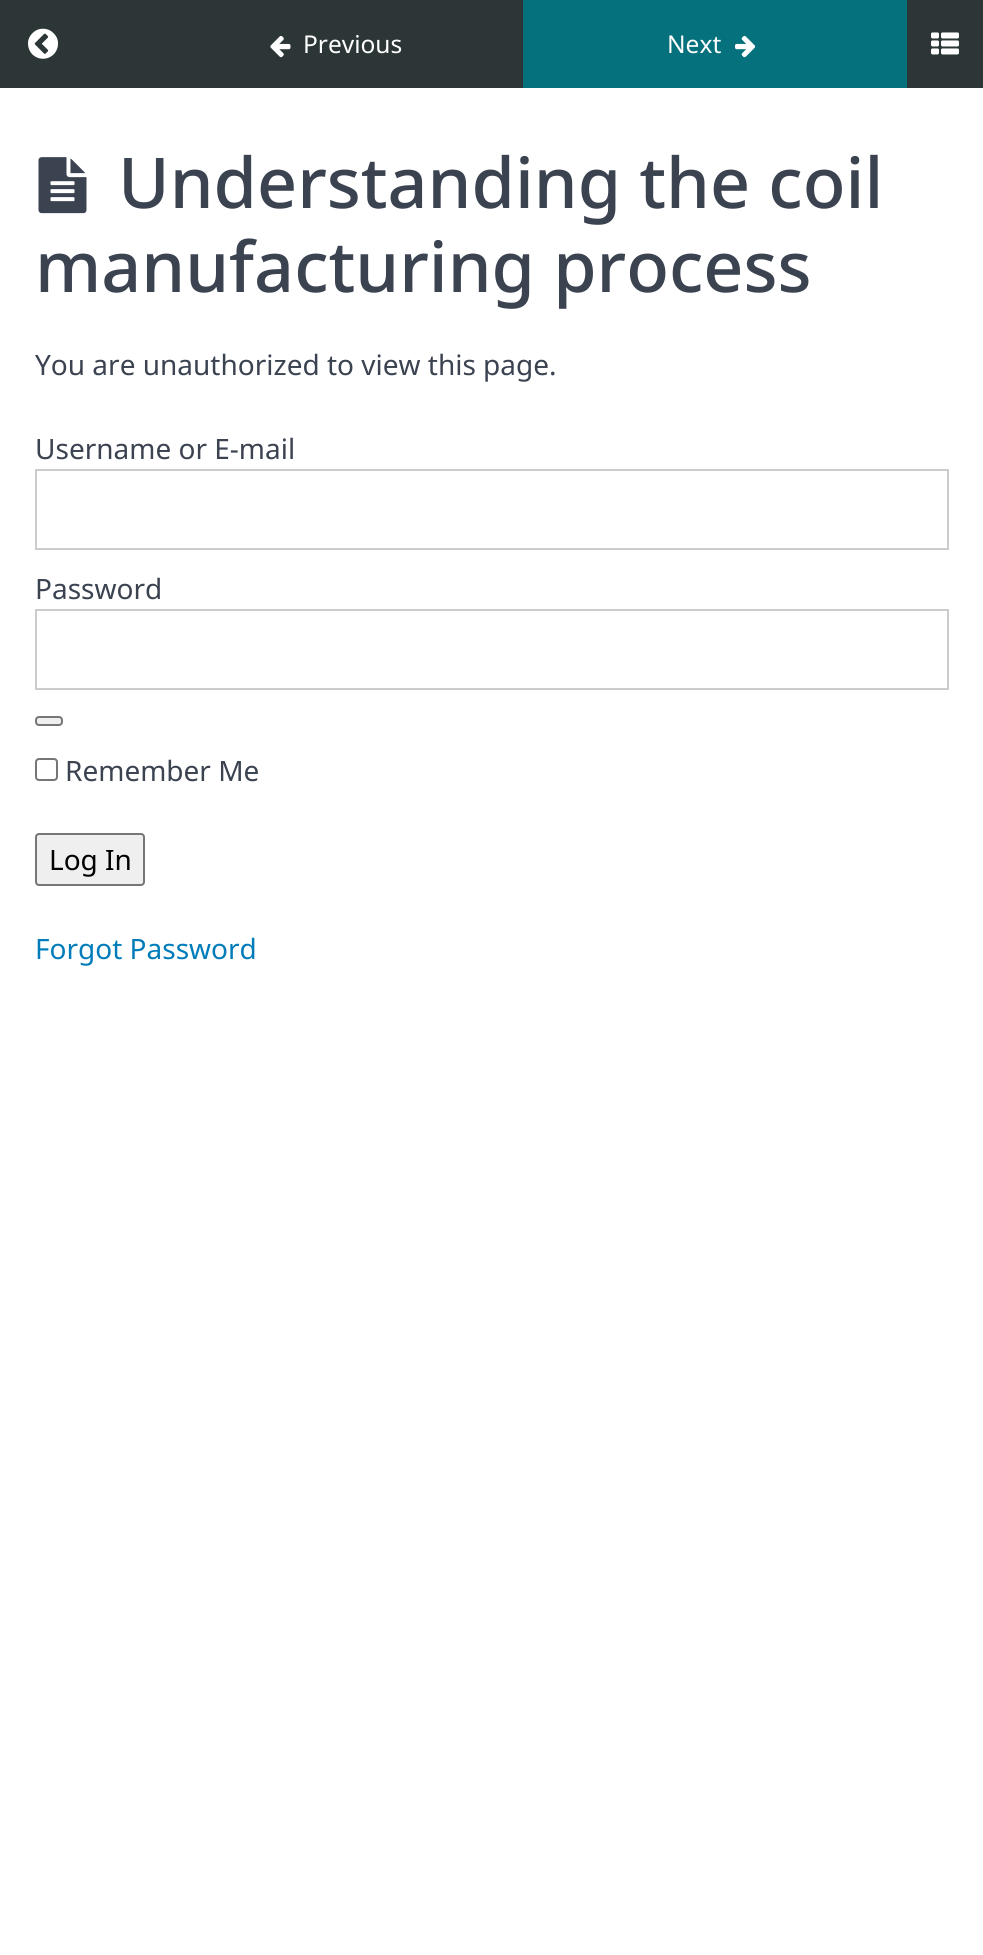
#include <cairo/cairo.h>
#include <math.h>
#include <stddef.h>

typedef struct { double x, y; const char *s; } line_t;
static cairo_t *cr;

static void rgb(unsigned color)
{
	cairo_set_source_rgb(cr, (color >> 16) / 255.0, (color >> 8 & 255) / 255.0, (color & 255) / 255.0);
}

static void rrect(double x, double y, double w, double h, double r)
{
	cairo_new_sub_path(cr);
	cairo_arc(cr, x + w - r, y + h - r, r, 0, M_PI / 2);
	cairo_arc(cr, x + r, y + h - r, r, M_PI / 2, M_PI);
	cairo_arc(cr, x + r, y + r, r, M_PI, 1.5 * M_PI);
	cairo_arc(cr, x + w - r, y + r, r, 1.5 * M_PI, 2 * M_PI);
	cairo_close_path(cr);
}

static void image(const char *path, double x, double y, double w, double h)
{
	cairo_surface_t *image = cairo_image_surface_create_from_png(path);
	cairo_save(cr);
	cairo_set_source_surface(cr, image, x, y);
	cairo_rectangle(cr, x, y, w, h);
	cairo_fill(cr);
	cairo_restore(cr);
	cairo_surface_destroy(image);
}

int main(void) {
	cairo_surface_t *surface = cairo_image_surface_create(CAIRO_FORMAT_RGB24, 983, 1955);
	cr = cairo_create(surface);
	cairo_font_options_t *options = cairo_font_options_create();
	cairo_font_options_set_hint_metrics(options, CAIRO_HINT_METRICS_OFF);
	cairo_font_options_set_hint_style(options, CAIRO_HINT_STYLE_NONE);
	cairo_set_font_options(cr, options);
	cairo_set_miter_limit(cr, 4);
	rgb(0xffffff);
	cairo_paint(cr);
	rgb(0x2c3637);
	cairo_rectangle(cr, 0, 0, 983, 88);
	cairo_fill(cr);
	image("img/1.png", 28, 28, 30, 31);
	image("img/2.png", 270, 35, 21, 23);
	rgb(0x05717c);
	cairo_rectangle(cr, 523, 0, 384, 88);
	cairo_fill(cr);
	image("img/3.png", 735, 35, 21, 23);
	image("img/4.png", 931, 32, 28, 23);
	image("img/5.png", 38, 157, 49, 57);
	cairo_rectangle(cr, 36, 470, 912, 79);
	rgb(0xcccccc);
	cairo_stroke(cr);
	cairo_rectangle(cr, 36, 610, 912, 79);
	cairo_stroke(cr);
	rgb(0xefefef);
	rrect(36, 717, 26, 8, 3);
	cairo_fill_preserve(cr);
	rgb(0x767676);
	cairo_stroke(cr);
	rrect(36, 759, 21, 21, 3);
	cairo_stroke(cr);
	rgb(0xefefef);
	rrect(36, 834, 108, 51, 3);
	cairo_fill_preserve(cr);
	rgb(0x767676);
	cairo_stroke(cr);
	cairo_select_font_face(cr, "Noto Sans", CAIRO_FONT_SLANT_NORMAL, CAIRO_FONT_WEIGHT_NORMAL);
	cairo_set_font_size(cr, 24.5);
	rgb(0xffffff);
	cairo_move_to(cr, 303, 53);
	cairo_show_text(cr, "Previous");
	cairo_move_to(cr, 667, 53);
	cairo_show_text(cr, "Next");
	cairo_select_font_face(cr, "Noto Sans Medium", CAIRO_FONT_SLANT_NORMAL, CAIRO_FONT_WEIGHT_NORMAL);
	cairo_set_font_size(cr, 70);
	rgb(0x3b4351);
	cairo_move_to(cr, 118, 208);
	cairo_show_text(cr, "Understanding the coil");
	cairo_move_to(cr, 35, 292);
	cairo_show_text(cr, "manufacturing process");
	cairo_select_font_face(cr, "Noto Sans", CAIRO_FONT_SLANT_NORMAL, CAIRO_FONT_WEIGHT_NORMAL);
	cairo_set_font_size(cr, 28);
	{
		static const line_t items[] = {
			{35, 375, "You are unauthorized to view this page."},
			{35, 459, "Username or E-mail"},
			{35, 599, "Password"},
			{65, 781, "Remember Me"},
		};
		for (size_t i = 0; i < sizeof items / sizeof *items; i++) {
			cairo_move_to(cr, items[i].x, items[i].y);
			cairo_show_text(cr, items[i].s);
		}
	}
	rgb(0x000000);
	cairo_move_to(cr, 49, 870);
	cairo_show_text(cr, "Log In");
	rgb(0x007cba);
	cairo_move_to(cr, 35, 959);
	cairo_show_text(cr, "Forgot Password");
	cairo_surface_write_to_png(surface, "page.png");
	cairo_font_options_destroy(options);
	cairo_destroy(cr);
	cairo_surface_destroy(surface);
	return 0;
}
